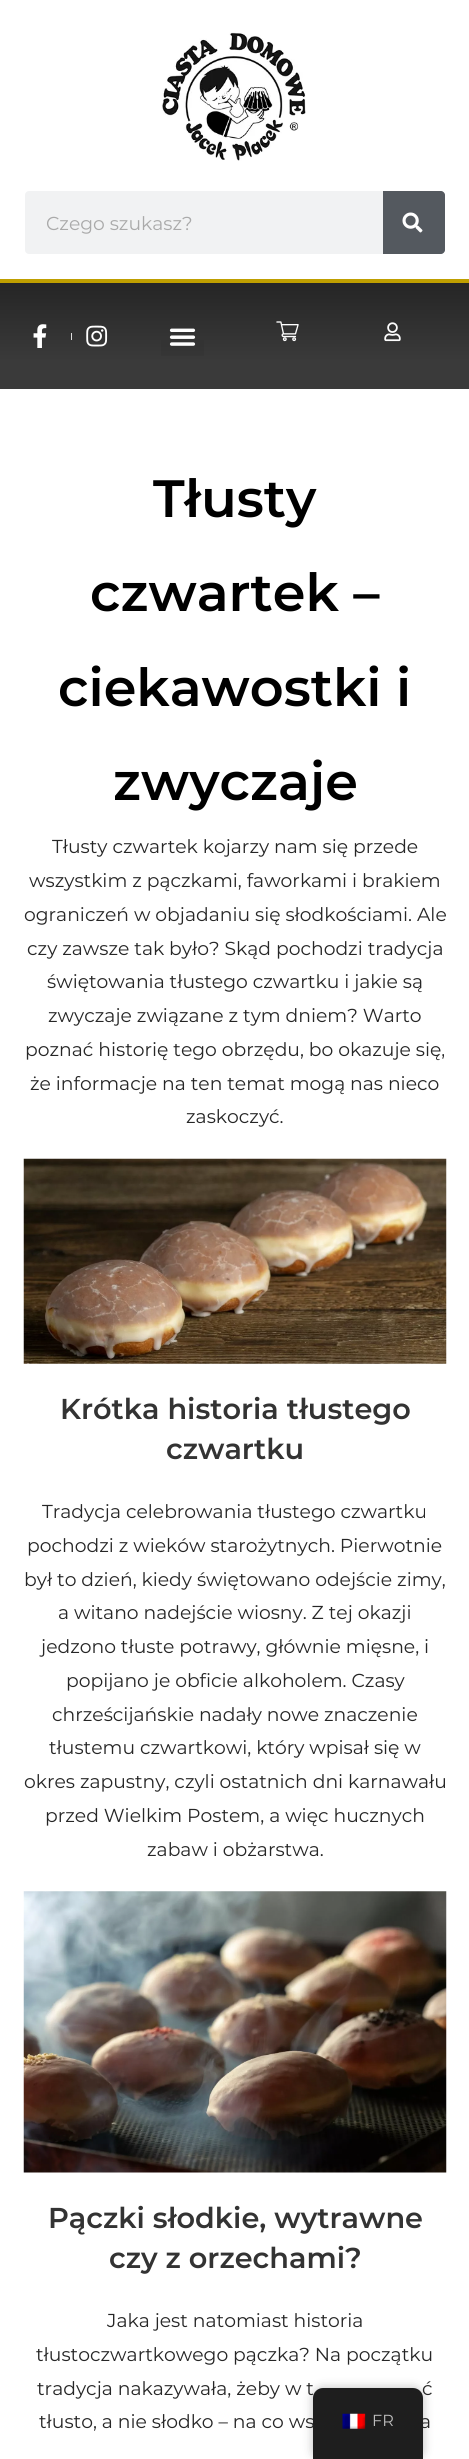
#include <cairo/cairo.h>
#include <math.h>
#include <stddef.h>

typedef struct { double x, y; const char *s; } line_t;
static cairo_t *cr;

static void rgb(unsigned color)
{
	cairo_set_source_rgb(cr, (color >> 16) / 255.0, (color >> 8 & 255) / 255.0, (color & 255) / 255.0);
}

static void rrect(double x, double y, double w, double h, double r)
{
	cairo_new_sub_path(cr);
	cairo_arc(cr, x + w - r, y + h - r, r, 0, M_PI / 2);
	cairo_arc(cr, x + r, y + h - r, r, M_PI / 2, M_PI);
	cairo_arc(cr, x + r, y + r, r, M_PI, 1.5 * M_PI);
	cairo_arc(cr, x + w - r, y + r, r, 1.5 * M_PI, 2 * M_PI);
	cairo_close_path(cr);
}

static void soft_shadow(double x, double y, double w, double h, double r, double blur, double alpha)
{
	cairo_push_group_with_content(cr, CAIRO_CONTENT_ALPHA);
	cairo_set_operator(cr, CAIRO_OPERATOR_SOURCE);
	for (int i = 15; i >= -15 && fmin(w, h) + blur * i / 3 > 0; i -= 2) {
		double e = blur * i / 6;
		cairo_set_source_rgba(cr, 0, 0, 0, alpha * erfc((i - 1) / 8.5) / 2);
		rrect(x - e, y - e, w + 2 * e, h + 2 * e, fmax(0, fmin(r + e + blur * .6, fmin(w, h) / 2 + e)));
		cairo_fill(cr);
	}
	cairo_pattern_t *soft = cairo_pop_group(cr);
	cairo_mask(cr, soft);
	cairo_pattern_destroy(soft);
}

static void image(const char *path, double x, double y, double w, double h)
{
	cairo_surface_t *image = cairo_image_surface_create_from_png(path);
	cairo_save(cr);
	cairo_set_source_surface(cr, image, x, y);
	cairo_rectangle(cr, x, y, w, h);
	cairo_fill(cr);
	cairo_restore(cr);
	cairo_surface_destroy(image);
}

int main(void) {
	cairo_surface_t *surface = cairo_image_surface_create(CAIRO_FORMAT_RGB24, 469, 2459);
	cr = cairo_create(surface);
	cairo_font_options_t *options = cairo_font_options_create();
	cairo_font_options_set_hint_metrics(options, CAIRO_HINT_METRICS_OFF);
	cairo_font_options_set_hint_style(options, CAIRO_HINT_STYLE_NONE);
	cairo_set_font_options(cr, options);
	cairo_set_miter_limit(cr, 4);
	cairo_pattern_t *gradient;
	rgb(0xffffff);
	cairo_paint(cr);
	image("img/1.png", 161, 32, 145, 129);
	rgb(0xf1f2f3);
	rrect(25, 191, 420, 63, 4);
	cairo_fill(cr);
	rgb(0x54595f);
	cairo_new_path(cr);
	cairo_move_to(cr, 383, 191);
	cairo_line_to(cr, 441, 191);
	cairo_curve_to(cr, 443, 191, 445, 193, 445, 195);
	cairo_line_to(cr, 445, 250);
	cairo_curve_to(cr, 445, 252, 443, 254, 441, 254);
	cairo_line_to(cr, 383, 254);
	cairo_close_path(cr);
	cairo_fill(cr);
	image("img/2.png", 402, 212, 21, 21);
	gradient = cairo_pattern_create_linear(235, 282, 235, 389);
	cairo_pattern_add_color_stop_rgba(gradient, 0, 0.145, 0.145, 0.145, 1);
	cairo_pattern_add_color_stop_rgba(gradient, 0.73, 0.227, 0.227, 0.227, 1);
	cairo_set_source(cr, gradient);
	cairo_pattern_destroy(gradient);
	cairo_rectangle(cr, 0, 283, 469, 106);
	cairo_fill(cr);
	rgb(0xbf9f00);
	cairo_rectangle(cr, 0, 279, 469, 4);
	cairo_fill(cr);
	image("img/3.png", 33, 324, 14, 24);
	rgb(0xdddddd);
	cairo_rectangle(cr, 71, 333, 1, 7);
	cairo_fill(cr);
	image("img/4.png", 86, 325, 22, 22);
	cairo_set_source_rgba(cr, 0, 0, 0, 0.05);
	cairo_rectangle(cr, 161, 340, 43, 16);
	cairo_fill(cr);
	image("img/5.png", 169, 328, 27, 18);
	image("img/6.png", 276, 321, 23, 21);
	image("img/7.png", 384, 322, 17, 20);
	image("img/8.png", 23, 1158, 424, 206);
	image("img/9.png", 23, 1891, 424, 282);
	rgb(0x000000);
	soft_shadow(313, 2388, 110, 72, 10, 5, 0.25);
	cairo_select_font_face(cr, "Montserrat", CAIRO_FONT_SLANT_NORMAL, CAIRO_FONT_WEIGHT_NORMAL);
	cairo_set_font_size(cr, 18.75);
	rgb(0xaaaaaa);
	cairo_move_to(cr, 46, 230);
	cairo_show_text(cr, "Czego szukasz?");
	cairo_select_font_face(cr, "Montserrat SemiBold", CAIRO_FONT_SLANT_NORMAL, CAIRO_FONT_WEIGHT_NORMAL);
	cairo_set_font_size(cr, 52.5);
	rgb(0x000000);
	{
		static const line_t items[] = {
			{153, 517, "Tłusty"},
			{90, 611, "czwartek –"},
			{58, 706, "ciekawostki i"},
			{113, 800, "zwyczaje"},
		};
		for (size_t i = 0; i < sizeof items / sizeof *items; i++) {
			cairo_move_to(cr, items[i].x, items[i].y);
			cairo_show_text(cr, items[i].s);
		}
	}
	cairo_select_font_face(cr, "Montserrat", CAIRO_FONT_SLANT_NORMAL, CAIRO_FONT_WEIGHT_NORMAL);
	cairo_set_font_size(cr, 18.75);
	rgb(0x262626);
	{
		static const line_t items[] = {
			{52, 853, "Tłusty czwartek kojarzy nam się przede"},
			{29, 887, "wszystkim z pączkami, faworkami i brakiem"},
			{24, 921, "ograniczeń w objadaniu się słodkościami. Ale"},
			{27, 955, "czy zawsze tak było? Skąd pochodzi tradycja"},
			{47, 988, "świętowania tłustego czwartku i jakie są"},
			{48, 1022, "zwyczaje związane z tym dniem? Warto"},
			{25, 1056, "poznać historię tego obrzędu, bo okazuje się,"},
			{30, 1090, "że informacje na ten temat mogą nas nieco"},
			{186, 1123, "zaskoczyć."},
		};
		for (size_t i = 0; i < sizeof items / sizeof *items; i++) {
			cairo_move_to(cr, items[i].x, items[i].y);
			cairo_show_text(cr, items[i].s);
		}
	}
	cairo_select_font_face(cr, "Montserrat SemiBold", CAIRO_FONT_SLANT_NORMAL, CAIRO_FONT_WEIGHT_NORMAL);
	cairo_set_font_size(cr, 28.75);
	rgb(0x333333);
	cairo_move_to(cr, 60, 1419);
	cairo_show_text(cr, "Krótka historia tłustego");
	cairo_move_to(cr, 166, 1459);
	cairo_show_text(cr, "czwartku");
	cairo_select_font_face(cr, "Montserrat", CAIRO_FONT_SLANT_NORMAL, CAIRO_FONT_WEIGHT_NORMAL);
	cairo_set_font_size(cr, 18.75);
	rgb(0x262626);
	{
		static const line_t items[] = {
			{42, 1518, "Tradycja celebrowania tłustego czwartku"},
			{27, 1552, "pochodzi z wieków starożytnych. Pierwotnie"},
			{24, 1586, "był to dzień, kiedy świętowano odejście zimy,"},
			{58, 1619, "a witano nadejście wiosny. Z tej okazji"},
			{41, 1653, "jedzono tłuste potrawy, głównie mięsne, i"},
			{66, 1687, "popijano je obficie alkoholem. Czasy"},
			{52, 1721, "chrześcijańskie nadały nowe znaczenie"},
			{49, 1754, "tłustemu czwartkowi, który wpisał się w"},
			{24, 1788, "okres zapustny, czyli ostatnich dni karnawału"},
			{45, 1822, "przed Wielkim Postem, a więc hucznych"},
			{147, 1856, "zabaw i obżarstwa."},
		};
		for (size_t i = 0; i < sizeof items / sizeof *items; i++) {
			cairo_move_to(cr, items[i].x, items[i].y);
			cairo_show_text(cr, items[i].s);
		}
	}
	cairo_select_font_face(cr, "Montserrat SemiBold", CAIRO_FONT_SLANT_NORMAL, CAIRO_FONT_WEIGHT_NORMAL);
	cairo_set_font_size(cr, 28.75);
	rgb(0x333333);
	cairo_move_to(cr, 48, 2228);
	cairo_show_text(cr, "Pączki słodkie, wytrawne");
	cairo_move_to(cr, 109, 2268);
	cairo_show_text(cr, "czy z orzechami?");
	cairo_select_font_face(cr, "Montserrat", CAIRO_FONT_SLANT_NORMAL, CAIRO_FONT_WEIGHT_NORMAL);
	cairo_set_font_size(cr, 18.75);
	rgb(0x262626);
	{
		static const line_t items[] = {
			{107, 2327, "Jaka jest natomiast historia"},
			{36, 2361, "tłustoczwartkowego pączka? Na początku"},
			{37, 2395, "tradycja nakazywała, żeby w t"},
			{422, 2395, "ć"},
			{39, 2428, "tłusto, a nie słodko – na co ws"},
			{420, 2428, "a"},
		};
		for (size_t i = 0; i < sizeof items / sizeof *items; i++) {
			cairo_move_to(cr, items[i].x, items[i].y);
			cairo_show_text(cr, items[i].s);
		}
	}
	rgb(0x1e1e1e);
	cairo_new_path(cr);
	cairo_move_to(cr, 323, 2388);
	cairo_line_to(cr, 413, 2388);
	cairo_curve_to(cr, 418.5, 2388, 423, 2392.5, 423, 2398);
	cairo_line_to(cr, 423, 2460);
	cairo_line_to(cr, 313, 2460);
	cairo_line_to(cr, 313, 2398);
	cairo_curve_to(cr, 313, 2392.5, 317.5, 2388, 323, 2388);
	cairo_close_path(cr);
	cairo_fill(cr);
	image("img/10.png", 342, 2413, 24, 16);
	cairo_set_font_size(cr, 16);
	rgb(0xbdbdbd);
	cairo_move_to(cr, 372, 2426);
	cairo_show_text(cr, "FR");
	cairo_surface_write_to_png(surface, "page.png");
	cairo_font_options_destroy(options);
	cairo_destroy(cr);
	cairo_surface_destroy(surface);
	return 0;
}
